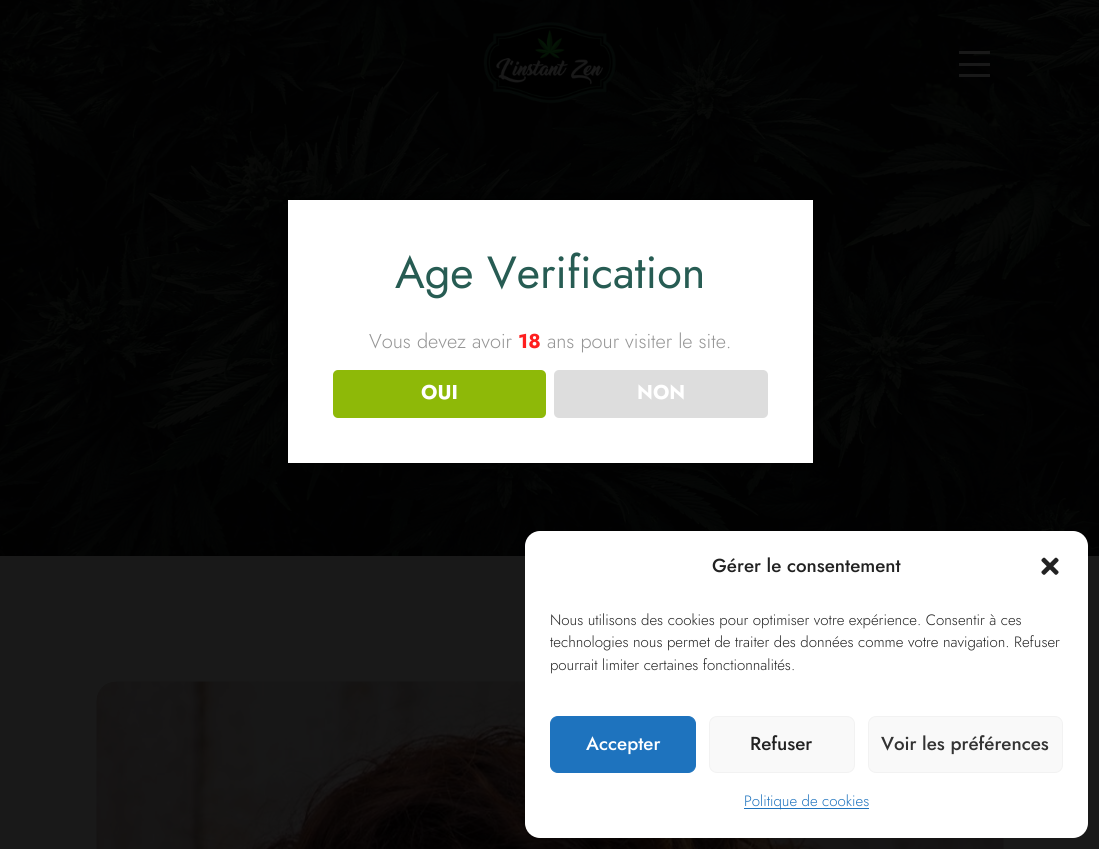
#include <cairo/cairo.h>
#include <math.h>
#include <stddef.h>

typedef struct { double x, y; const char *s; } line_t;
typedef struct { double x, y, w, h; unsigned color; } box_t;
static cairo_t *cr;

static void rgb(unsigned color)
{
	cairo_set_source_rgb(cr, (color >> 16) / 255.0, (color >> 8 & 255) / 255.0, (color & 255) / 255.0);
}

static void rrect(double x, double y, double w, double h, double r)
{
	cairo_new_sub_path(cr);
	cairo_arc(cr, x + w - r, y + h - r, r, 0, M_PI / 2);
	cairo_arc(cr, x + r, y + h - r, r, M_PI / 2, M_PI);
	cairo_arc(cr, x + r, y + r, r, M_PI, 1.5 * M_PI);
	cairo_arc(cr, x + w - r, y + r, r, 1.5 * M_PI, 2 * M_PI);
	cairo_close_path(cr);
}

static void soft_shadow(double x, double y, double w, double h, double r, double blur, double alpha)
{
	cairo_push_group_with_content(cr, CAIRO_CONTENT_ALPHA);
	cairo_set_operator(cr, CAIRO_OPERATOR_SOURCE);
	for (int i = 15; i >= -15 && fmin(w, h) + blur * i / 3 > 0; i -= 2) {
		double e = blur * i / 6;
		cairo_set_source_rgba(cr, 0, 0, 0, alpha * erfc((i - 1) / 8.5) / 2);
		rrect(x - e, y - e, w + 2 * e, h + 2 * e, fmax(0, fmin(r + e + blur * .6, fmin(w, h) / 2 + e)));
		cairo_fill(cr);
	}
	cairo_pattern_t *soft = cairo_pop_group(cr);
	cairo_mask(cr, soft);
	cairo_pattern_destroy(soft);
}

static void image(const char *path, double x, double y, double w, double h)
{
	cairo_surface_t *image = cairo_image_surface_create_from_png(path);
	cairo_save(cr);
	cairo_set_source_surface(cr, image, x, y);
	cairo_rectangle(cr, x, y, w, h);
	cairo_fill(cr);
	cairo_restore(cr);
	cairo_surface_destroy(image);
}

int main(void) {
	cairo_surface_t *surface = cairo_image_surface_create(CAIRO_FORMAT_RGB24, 1099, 849);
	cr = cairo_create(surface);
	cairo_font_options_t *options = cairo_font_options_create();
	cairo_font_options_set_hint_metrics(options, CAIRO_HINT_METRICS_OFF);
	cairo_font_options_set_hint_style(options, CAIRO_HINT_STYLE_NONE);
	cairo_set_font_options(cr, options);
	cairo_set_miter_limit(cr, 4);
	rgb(0x191919);
	cairo_paint(cr);
	image("img/1.png", 0, 0, 1099, 556);
	image("img/2.png", 483, 22, 133, 82);
	{
		static const box_t items[] = {
			{959, 51, 31, 3, 0x191919},
			{959, 63, 31, 3, 0x191919},
			{959, 74, 31, 3, 0x191919},
		};
		for (size_t i = 0; i < sizeof items / sizeof *items; i++) {
			rgb(items[i].color);
			cairo_rectangle(cr, items[i].x, items[i].y, items[i].w, items[i].h);
			cairo_fill(cr);
		}
	}
	image("img/3.png", 96, 681, 908, 168);
	rgb(0x000000);
	soft_shadow(288, 200, 525, 263, 0, 9.5, 1);
	rgb(0xffffff);
	cairo_rectangle(cr, 288, 200, 525, 263);
	cairo_fill(cr);
	rgb(0x8eb908);
	rrect(333, 370, 213, 48, 5);
	cairo_fill(cr);
	rgb(0xdddddd);
	rrect(554, 370, 214, 48, 5);
	cairo_fill(cr);
	rgb(0xffffff);
	rrect(525, 531, 563, 307, 15);
	cairo_fill(cr);
	image("img/4.png", 1041, 557, 18, 18);
	rgb(0x1e73be);
	rrect(550.5, 716.5, 145, 56, 7.5);
	cairo_fill_preserve(cr);
	cairo_set_line_width(cr, 1);
	cairo_stroke(cr);
	rgb(0xf9f9f9);
	rrect(709.5, 716.5, 145, 56, 7.5);
	cairo_fill_preserve(cr);
	rgb(0xf2f2f2);
	cairo_stroke(cr);
	rgb(0xf9f9f9);
	rrect(868.5, 716.5, 194, 56, 7.5);
	cairo_fill_preserve(cr);
	rgb(0xf2f2f2);
	cairo_stroke(cr);
	rgb(0x1e73be);
	cairo_rectangle(cr, 744, 808, 125, 1);
	cairo_fill(cr);
	cairo_select_font_face(cr, "Jost", CAIRO_FONT_SLANT_NORMAL, CAIRO_FONT_WEIGHT_NORMAL);
	cairo_set_font_size(cr, 45);
	rgb(0x275c53);
	cairo_move_to(cr, 395, 288);
	cairo_show_text(cr, "Age Verification");
	cairo_select_font_face(cr, "Jost Light", CAIRO_FONT_SLANT_NORMAL, CAIRO_FONT_WEIGHT_NORMAL);
	cairo_set_font_size(cr, 20);
	rgb(0x959595);
	cairo_move_to(cr, 369, 348);
	cairo_show_text(cr, "Vous devez avoir");
	cairo_select_font_face(cr, "Jost", CAIRO_FONT_SLANT_NORMAL, CAIRO_FONT_WEIGHT_BOLD);
	rgb(0xff1f1f);
	cairo_move_to(cr, 518, 348);
	cairo_show_text(cr, "18");
	cairo_select_font_face(cr, "Jost Light", CAIRO_FONT_SLANT_NORMAL, CAIRO_FONT_WEIGHT_NORMAL);
	rgb(0x959595);
	cairo_move_to(cr, 547, 348);
	cairo_show_text(cr, "ans pour visiter le site.");
	cairo_select_font_face(cr, "Jost", CAIRO_FONT_SLANT_NORMAL, CAIRO_FONT_WEIGHT_BOLD);
	rgb(0xffffff);
	cairo_move_to(cr, 421, 399);
	cairo_show_text(cr, "OUI");
	cairo_move_to(cr, 637, 399);
	cairo_show_text(cr, "NON");
	cairo_select_font_face(cr, "Jost Medium", CAIRO_FONT_SLANT_NORMAL, CAIRO_FONT_WEIGHT_NORMAL);
	cairo_set_font_size(cr, 18.75);
	rgb(0x222222);
	cairo_move_to(cr, 712, 572);
	cairo_show_text(cr, "Gérer le consentement");
	cairo_select_font_face(cr, "Jost Light", CAIRO_FONT_SLANT_NORMAL, CAIRO_FONT_WEIGHT_NORMAL);
	cairo_set_font_size(cr, 15);
	{
		static const line_t items[] = {
			{550, 625, "Nous utilisons des cookies pour optimiser votre expérience. Consentir à ces"},
			{550, 647, "technologies nous permet de traiter des données comme votre navigation. Refuser"},
			{550, 670, "pourrait limiter certaines fonctionnalités."},
		};
		for (size_t i = 0; i < sizeof items / sizeof *items; i++) {
			cairo_move_to(cr, items[i].x, items[i].y);
			cairo_show_text(cr, items[i].s);
		}
	}
	cairo_select_font_face(cr, "Jost Medium", CAIRO_FONT_SLANT_NORMAL, CAIRO_FONT_WEIGHT_NORMAL);
	cairo_set_font_size(cr, 18.75);
	rgb(0xffffff);
	cairo_move_to(cr, 586, 750);
	cairo_show_text(cr, "Accepter");
	rgb(0x222222);
	cairo_move_to(cr, 750, 750);
	cairo_show_text(cr, "Refuser");
	rgb(0x333333);
	cairo_move_to(cr, 881, 750);
	cairo_show_text(cr, "Voir les préférences");
	cairo_select_font_face(cr, "Jost Light", CAIRO_FONT_SLANT_NORMAL, CAIRO_FONT_WEIGHT_NORMAL);
	cairo_set_font_size(cr, 15);
	rgb(0x1e73be);
	cairo_move_to(cr, 744, 806);
	cairo_show_text(cr, "Politique de cookies");
	cairo_surface_write_to_png(surface, "page.png");
	cairo_font_options_destroy(options);
	cairo_destroy(cr);
	cairo_surface_destroy(surface);
	return 0;
}
